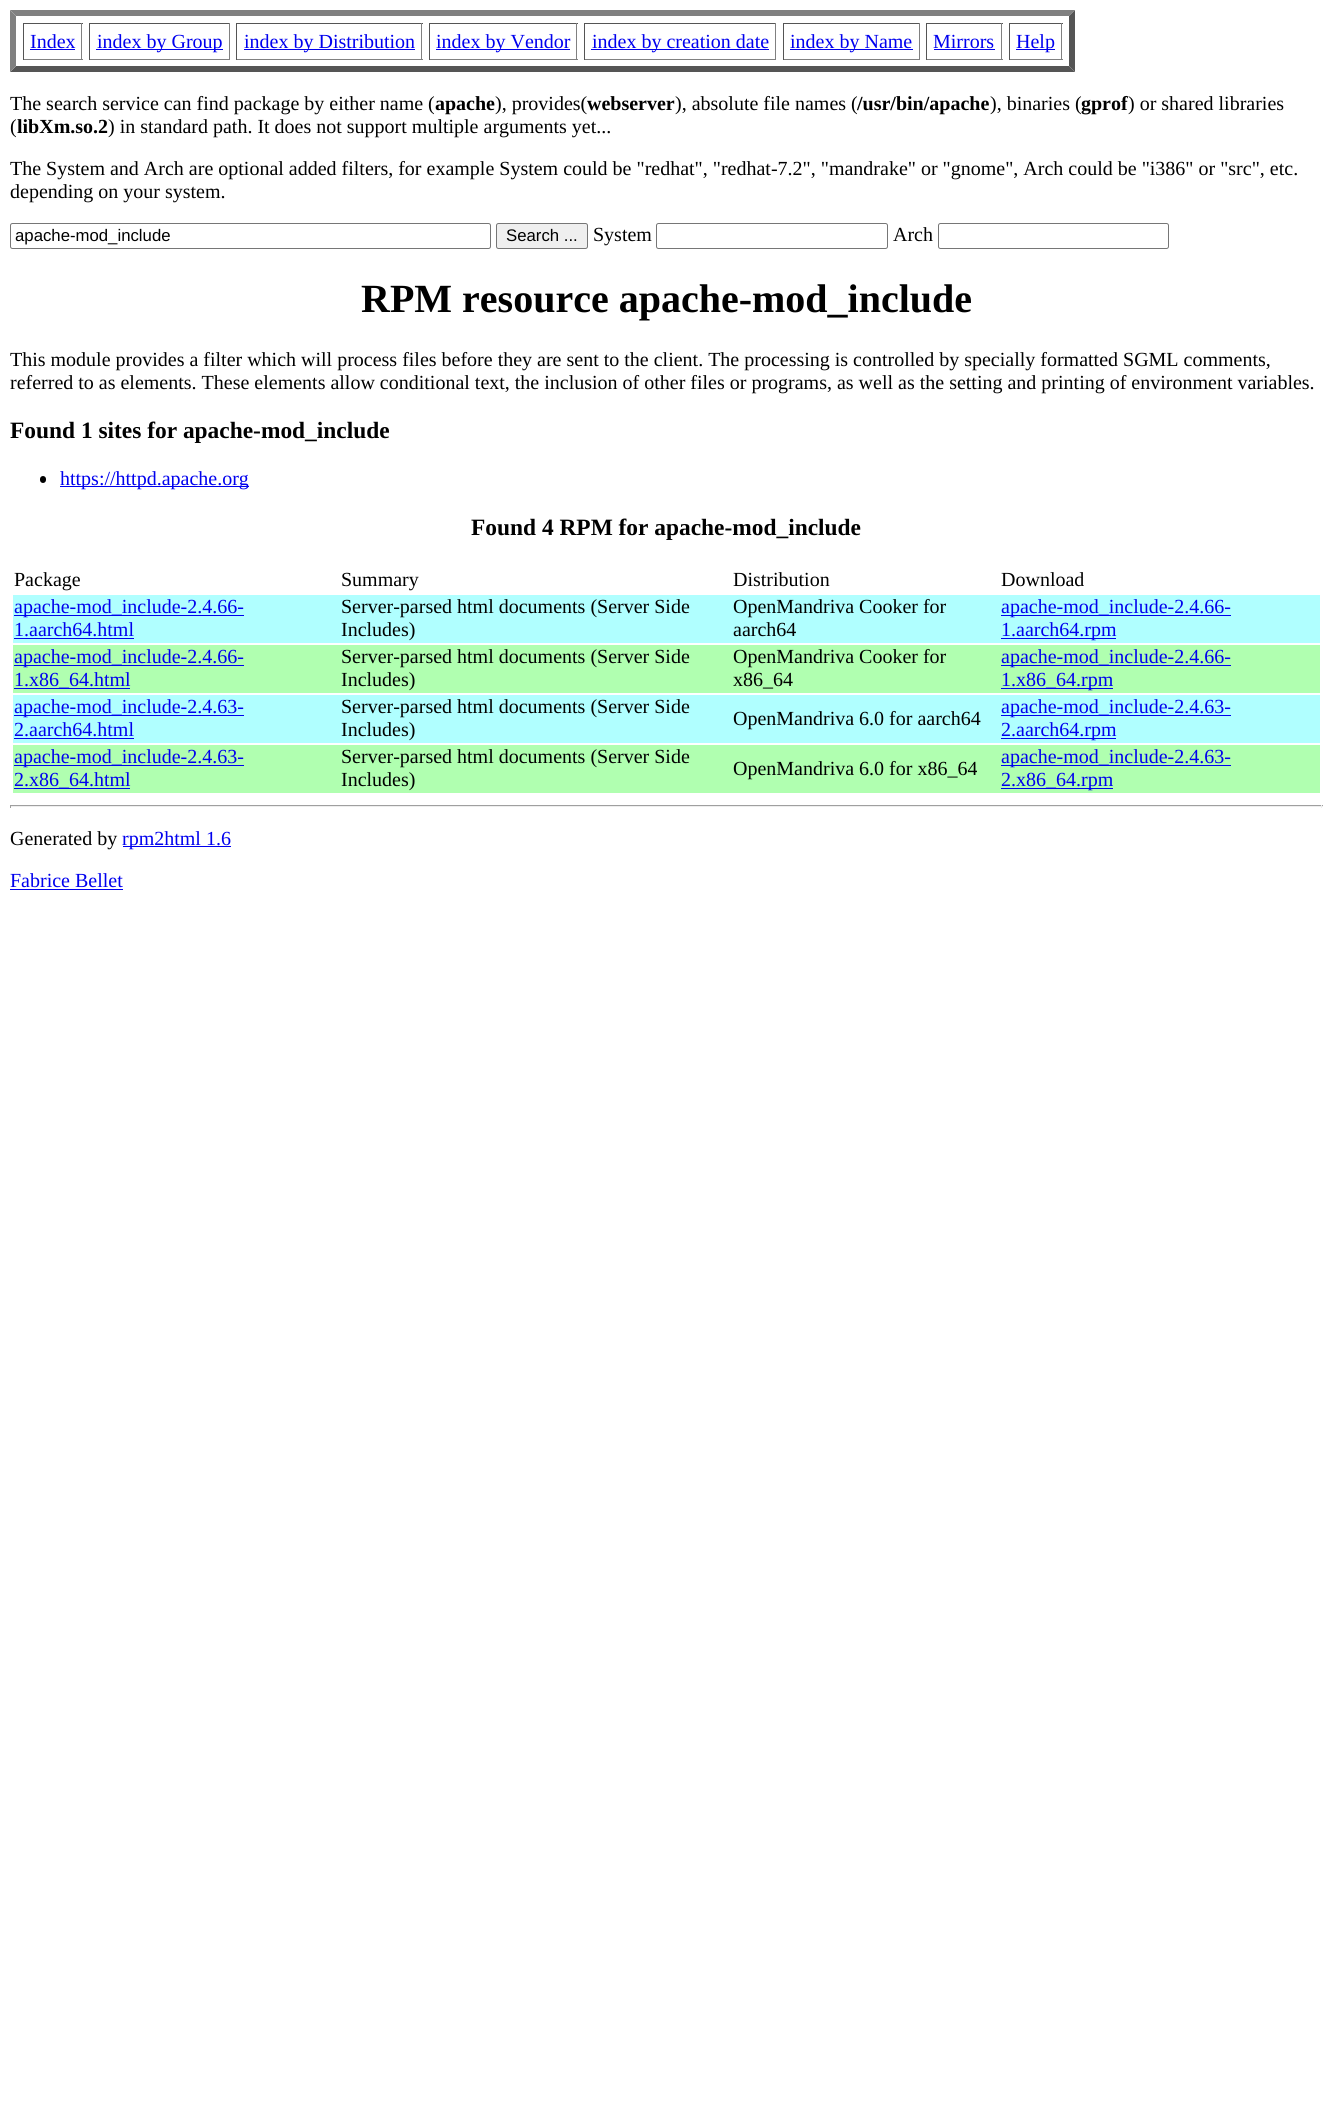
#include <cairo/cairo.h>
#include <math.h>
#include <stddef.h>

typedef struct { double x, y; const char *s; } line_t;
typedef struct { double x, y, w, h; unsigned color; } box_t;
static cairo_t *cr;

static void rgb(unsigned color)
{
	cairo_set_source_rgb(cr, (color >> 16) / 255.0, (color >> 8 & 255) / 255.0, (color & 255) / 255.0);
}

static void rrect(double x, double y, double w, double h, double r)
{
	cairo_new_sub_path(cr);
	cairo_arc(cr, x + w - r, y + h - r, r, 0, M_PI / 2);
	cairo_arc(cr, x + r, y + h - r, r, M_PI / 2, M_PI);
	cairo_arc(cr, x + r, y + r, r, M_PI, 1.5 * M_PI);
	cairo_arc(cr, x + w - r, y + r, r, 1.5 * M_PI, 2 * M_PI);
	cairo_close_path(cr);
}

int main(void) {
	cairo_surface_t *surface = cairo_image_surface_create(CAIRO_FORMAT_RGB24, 1332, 2118);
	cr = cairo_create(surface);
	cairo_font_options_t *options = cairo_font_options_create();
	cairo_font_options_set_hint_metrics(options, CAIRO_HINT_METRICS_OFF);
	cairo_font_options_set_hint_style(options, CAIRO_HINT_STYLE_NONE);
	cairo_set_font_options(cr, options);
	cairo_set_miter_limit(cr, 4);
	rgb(0xffffff);
	cairo_paint(cr);
	rgb(0x808080);
	cairo_new_path(cr);
	cairo_move_to(cr, 10, 10);
	cairo_line_to(cr, 1075, 10);
	cairo_line_to(cr, 1069, 16);
	cairo_line_to(cr, 16, 16);
	cairo_close_path(cr);
	cairo_fill(cr);
	rgb(0x555555);
	cairo_new_path(cr);
	cairo_move_to(cr, 1075, 10);
	cairo_line_to(cr, 1075, 72);
	cairo_line_to(cr, 1069, 66);
	cairo_line_to(cr, 1069, 16);
	cairo_close_path(cr);
	cairo_fill(cr);
	cairo_new_path(cr);
	cairo_move_to(cr, 1075, 72);
	cairo_line_to(cr, 10, 72);
	cairo_line_to(cr, 16, 66);
	cairo_line_to(cr, 1069, 66);
	cairo_close_path(cr);
	cairo_fill(cr);
	rgb(0x808080);
	cairo_new_path(cr);
	cairo_move_to(cr, 10, 72);
	cairo_line_to(cr, 10, 10);
	cairo_line_to(cr, 16, 16);
	cairo_line_to(cr, 16, 66);
	cairo_close_path(cr);
	cairo_fill(cr);
	{
		static const box_t items[] = {
			{23, 23, 60, 1, 0x555555},
			{81, 23, 1, 37, 0x808080},
			{23, 59, 60, 1, 0x808080},
			{23, 23, 1, 37, 0x555555},
			{30, 49, 45, 1, 0x0000ee},
			{89, 23, 141, 1, 0x555555},
			{229, 23, 1, 37, 0x808080},
			{89, 59, 141, 1, 0x808080},
			{89, 23, 1, 37, 0x555555},
			{96, 49, 127, 1, 0x0000ee},
			{236, 23, 187, 1, 0x555555},
			{421, 23, 1, 37, 0x808080},
			{236, 59, 187, 1, 0x808080},
			{236, 23, 1, 37, 0x555555},
			{244, 49, 171, 1, 0x0000ee},
			{429, 23, 149, 1, 0x555555},
			{576, 23, 1, 37, 0x808080},
			{429, 59, 149, 1, 0x808080},
			{429, 23, 1, 37, 0x555555},
			{436, 49, 134, 1, 0x0000ee},
			{584, 23, 192, 1, 0x555555},
			{775, 23, 1, 37, 0x808080},
			{584, 59, 192, 1, 0x808080},
			{584, 23, 1, 37, 0x555555},
			{591, 49, 178, 1, 0x0000ee},
			{783, 23, 137, 1, 0x555555},
			{919, 23, 1, 37, 0x808080},
			{783, 59, 137, 1, 0x808080},
			{783, 23, 1, 37, 0x555555},
			{790, 49, 123, 1, 0x0000ee},
			{926, 23, 77, 1, 0x555555},
			{1001, 23, 1, 37, 0x808080},
			{926, 59, 77, 1, 0x808080},
			{926, 23, 1, 37, 0x555555},
			{934, 49, 61, 1, 0x0000ee},
			{1009, 23, 54, 1, 0x555555},
			{1061, 23, 1, 37, 0x808080},
			{1009, 59, 54, 1, 0x808080},
			{1009, 23, 1, 37, 0x555555},
			{1016, 49, 39, 1, 0x0000ee},
		};
		for (size_t i = 0; i < sizeof items / sizeof *items; i++) {
			rgb(items[i].color);
			cairo_rectangle(cr, items[i].x, items[i].y, items[i].w, items[i].h);
			cairo_fill(cr);
		}
	}
	rrect(10.5, 223.5, 480, 25, 2);
	rgb(0x767676);
	cairo_set_line_width(cr, 1);
	cairo_stroke(cr);
	rgb(0xefefef);
	rrect(496.5, 223.5, 91, 25, 2);
	cairo_fill_preserve(cr);
	rgb(0x767676);
	cairo_stroke(cr);
	rrect(656.5, 223.5, 231, 25, 2);
	cairo_stroke(cr);
	rrect(938.5, 223.5, 230, 25, 2);
	cairo_stroke(cr);
	rgb(0x000000);
	rrect(40, 476, 6, 7, 3);
	cairo_fill(cr);
	{
		static const box_t items[] = {
			{60, 486, 189, 1, 0x0000ee},
			{13, 595, 1307, 48, 0xb0ffff},
			{14, 615, 230, 1, 0x0000ee},
			{14, 638, 120, 1, 0x0000ee},
			{1001, 615, 230, 1, 0x0000ee},
			{1001, 638, 115, 1, 0x0000ee},
			{13, 645, 1307, 48, 0xb0ffb0},
			{14, 665, 230, 1, 0x0000ee},
			{14, 688, 116, 1, 0x0000ee},
			{1001, 665, 230, 1, 0x0000ee},
			{1001, 688, 112, 1, 0x0000ee},
			{13, 695, 1307, 48, 0xb0ffff},
			{14, 715, 230, 1, 0x0000ee},
			{14, 738, 120, 1, 0x0000ee},
			{1001, 715, 230, 1, 0x0000ee},
			{1001, 738, 115, 1, 0x0000ee},
			{13, 745, 1307, 48, 0xb0ffb0},
			{14, 765, 230, 1, 0x0000ee},
			{14, 788, 116, 1, 0x0000ee},
			{1001, 765, 230, 1, 0x0000ee},
			{1001, 788, 112, 1, 0x0000ee},
			{10, 805, 1313, 1, 0x9f9f9f},
			{1321, 805, 1, 3, 0xeeeeee},
			{10, 806, 1313, 1, 0xeeeeee},
			{10, 805, 1, 3, 0x9f9f9f},
			{123, 846, 108, 1, 0x0000ee},
			{10, 889, 113, 1, 0x0000ee},
		};
		for (size_t i = 0; i < sizeof items / sizeof *items; i++) {
			rgb(items[i].color);
			cairo_rectangle(cr, items[i].x, items[i].y, items[i].w, items[i].h);
			cairo_fill(cr);
		}
	}
	cairo_select_font_face(cr, "Liberation Serif", CAIRO_FONT_SLANT_NORMAL, CAIRO_FONT_WEIGHT_NORMAL);
	cairo_set_font_size(cr, 20);
	{
		static const line_t items[] = {
			{30, 48, "Index"},
			{97, 48, "index by Group"},
			{244, 48, "index by Distribution"},
			{436, 48, "index by Vendor"},
			{592, 48, "index by creation date"},
			{790, 48, "index by Name"},
			{933, 48, "Mirrors"},
			{1016, 48, "Help"},
		};
		for (size_t i = 0; i < sizeof items / sizeof *items; i++) {
			cairo_move_to(cr, items[i].x, items[i].y);
			cairo_show_text(cr, items[i].s);
		}
	}
	rgb(0x000000);
	cairo_move_to(cr, 10, 110);
	cairo_show_text(cr, "The search service can find package by either name (");
	cairo_select_font_face(cr, "Liberation Serif", CAIRO_FONT_SLANT_NORMAL, CAIRO_FONT_WEIGHT_BOLD);
	cairo_move_to(cr, 435, 110);
	cairo_show_text(cr, "apache");
	cairo_select_font_face(cr, "Liberation Serif", CAIRO_FONT_SLANT_NORMAL, CAIRO_FONT_WEIGHT_NORMAL);
	cairo_move_to(cr, 495, 110);
	cairo_show_text(cr, "), provides(");
	cairo_select_font_face(cr, "Liberation Serif", CAIRO_FONT_SLANT_NORMAL, CAIRO_FONT_WEIGHT_BOLD);
	cairo_move_to(cr, 587, 110);
	cairo_show_text(cr, "webserver");
	cairo_select_font_face(cr, "Liberation Serif", CAIRO_FONT_SLANT_NORMAL, CAIRO_FONT_WEIGHT_NORMAL);
	cairo_move_to(cr, 675, 110);
	cairo_show_text(cr, "), absolute file names (");
	cairo_select_font_face(cr, "Liberation Serif", CAIRO_FONT_SLANT_NORMAL, CAIRO_FONT_WEIGHT_BOLD);
	cairo_move_to(cr, 857, 110);
	cairo_show_text(cr, "/usr/bin/apache");
	cairo_select_font_face(cr, "Liberation Serif", CAIRO_FONT_SLANT_NORMAL, CAIRO_FONT_WEIGHT_NORMAL);
	cairo_move_to(cr, 990, 110);
	cairo_show_text(cr, "), binaries (");
	cairo_select_font_face(cr, "Liberation Serif", CAIRO_FONT_SLANT_NORMAL, CAIRO_FONT_WEIGHT_BOLD);
	cairo_move_to(cr, 1081, 110);
	cairo_show_text(cr, "gprof");
	cairo_select_font_face(cr, "Liberation Serif", CAIRO_FONT_SLANT_NORMAL, CAIRO_FONT_WEIGHT_NORMAL);
	cairo_move_to(cr, 1128, 110);
	cairo_show_text(cr, ") or shared libraries");
	cairo_move_to(cr, 10, 133);
	cairo_show_text(cr, "(");
	cairo_select_font_face(cr, "Liberation Serif", CAIRO_FONT_SLANT_NORMAL, CAIRO_FONT_WEIGHT_BOLD);
	cairo_move_to(cr, 17, 133);
	cairo_show_text(cr, "libXm.so.2");
	cairo_select_font_face(cr, "Liberation Serif", CAIRO_FONT_SLANT_NORMAL, CAIRO_FONT_WEIGHT_NORMAL);
	{
		static const line_t items[] = {
			{108, 133, ") in standard path. It does not support multiple arguments yet..."},
			{10, 175, "The System and Arch are optional added filters, for example System could be \"redhat\", \"redhat-7.2\", \"mandrake\" or \"gnome\", Arch could be \"i386\" or \"src\", etc."},
			{10, 198, "depending on your system."},
		};
		for (size_t i = 0; i < sizeof items / sizeof *items; i++) {
			cairo_move_to(cr, items[i].x, items[i].y);
			cairo_show_text(cr, items[i].s);
		}
	}
	cairo_select_font_face(cr, "Liberation Sans", CAIRO_FONT_SLANT_NORMAL, CAIRO_FONT_WEIGHT_NORMAL);
	cairo_set_font_size(cr, 16.75);
	cairo_move_to(cr, 15, 241);
	cairo_show_text(cr, "apache-mod_include");
	cairo_move_to(cr, 506, 241);
	cairo_show_text(cr, "Search ...");
	cairo_select_font_face(cr, "Liberation Serif", CAIRO_FONT_SLANT_NORMAL, CAIRO_FONT_WEIGHT_NORMAL);
	cairo_set_font_size(cr, 20);
	cairo_move_to(cr, 593, 241);
	cairo_show_text(cr, "System");
	cairo_move_to(cr, 893, 241);
	cairo_show_text(cr, "Arch");
	cairo_select_font_face(cr, "Liberation Serif", CAIRO_FONT_SLANT_NORMAL, CAIRO_FONT_WEIGHT_BOLD);
	cairo_set_font_size(cr, 40);
	cairo_move_to(cr, 361, 312);
	cairo_show_text(cr, "RPM resource apache-mod_include");
	cairo_select_font_face(cr, "Liberation Serif", CAIRO_FONT_SLANT_NORMAL, CAIRO_FONT_WEIGHT_NORMAL);
	cairo_set_font_size(cr, 20);
	cairo_move_to(cr, 10, 366);
	cairo_show_text(cr, "This module provides a filter which will process files before they are sent to the client. The processing is controlled by specially formatted SGML comments,");
	cairo_move_to(cr, 10, 389);
	cairo_show_text(cr, "referred to as elements. These elements allow conditional text, the inclusion of other files or programs, as well as the setting and printing of environment variables.");
	cairo_select_font_face(cr, "Liberation Serif", CAIRO_FONT_SLANT_NORMAL, CAIRO_FONT_WEIGHT_BOLD);
	cairo_set_font_size(cr, 23.4);
	cairo_move_to(cr, 10, 438);
	cairo_show_text(cr, "Found 1 sites for apache-mod_include");
	cairo_select_font_face(cr, "Liberation Serif", CAIRO_FONT_SLANT_NORMAL, CAIRO_FONT_WEIGHT_NORMAL);
	cairo_set_font_size(cr, 20);
	rgb(0x0000ee);
	cairo_move_to(cr, 60, 485);
	cairo_show_text(cr, "https://httpd.apache.org");
	cairo_select_font_face(cr, "Liberation Serif", CAIRO_FONT_SLANT_NORMAL, CAIRO_FONT_WEIGHT_BOLD);
	cairo_set_font_size(cr, 23.4);
	rgb(0x000000);
	cairo_move_to(cr, 471, 535);
	cairo_show_text(cr, "Found 4 RPM for apache-mod_include");
	cairo_select_font_face(cr, "Liberation Serif", CAIRO_FONT_SLANT_NORMAL, CAIRO_FONT_WEIGHT_NORMAL);
	cairo_set_font_size(cr, 20);
	{
		static const line_t items[] = {
			{14, 586, "Package"},
			{341, 586, "Summary"},
			{733, 586, "Distribution"},
			{1001, 586, "Download"},
		};
		for (size_t i = 0; i < sizeof items / sizeof *items; i++) {
			cairo_move_to(cr, items[i].x, items[i].y);
			cairo_show_text(cr, items[i].s);
		}
	}
	rgb(0x0000ee);
	cairo_move_to(cr, 14, 613);
	cairo_show_text(cr, "apache-mod_include-2.4.66-");
	cairo_move_to(cr, 14, 636);
	cairo_show_text(cr, "1.aarch64.html");
	rgb(0x000000);
	{
		static const line_t items[] = {
			{341, 613, "Server-parsed html documents (Server Side"},
			{341, 636, "Includes)"},
			{733, 613, "OpenMandriva Cooker for"},
			{733, 636, "aarch64"},
		};
		for (size_t i = 0; i < sizeof items / sizeof *items; i++) {
			cairo_move_to(cr, items[i].x, items[i].y);
			cairo_show_text(cr, items[i].s);
		}
	}
	rgb(0x0000ee);
	{
		static const line_t items[] = {
			{1001, 613, "apache-mod_include-2.4.66-"},
			{1001, 636, "1.aarch64.rpm"},
			{14, 663, "apache-mod_include-2.4.66-"},
			{14, 686, "1.x86_64.html"},
		};
		for (size_t i = 0; i < sizeof items / sizeof *items; i++) {
			cairo_move_to(cr, items[i].x, items[i].y);
			cairo_show_text(cr, items[i].s);
		}
	}
	rgb(0x000000);
	{
		static const line_t items[] = {
			{341, 663, "Server-parsed html documents (Server Side"},
			{341, 686, "Includes)"},
			{733, 663, "OpenMandriva Cooker for"},
			{733, 686, "x86_64"},
		};
		for (size_t i = 0; i < sizeof items / sizeof *items; i++) {
			cairo_move_to(cr, items[i].x, items[i].y);
			cairo_show_text(cr, items[i].s);
		}
	}
	rgb(0x0000ee);
	{
		static const line_t items[] = {
			{1001, 663, "apache-mod_include-2.4.66-"},
			{1001, 686, "1.x86_64.rpm"},
			{14, 713, "apache-mod_include-2.4.63-"},
			{14, 736, "2.aarch64.html"},
		};
		for (size_t i = 0; i < sizeof items / sizeof *items; i++) {
			cairo_move_to(cr, items[i].x, items[i].y);
			cairo_show_text(cr, items[i].s);
		}
	}
	rgb(0x000000);
	{
		static const line_t items[] = {
			{341, 713, "Server-parsed html documents (Server Side"},
			{341, 736, "Includes)"},
			{733, 725, "OpenMandriva 6.0 for aarch64"},
		};
		for (size_t i = 0; i < sizeof items / sizeof *items; i++) {
			cairo_move_to(cr, items[i].x, items[i].y);
			cairo_show_text(cr, items[i].s);
		}
	}
	rgb(0x0000ee);
	{
		static const line_t items[] = {
			{1001, 713, "apache-mod_include-2.4.63-"},
			{1001, 736, "2.aarch64.rpm"},
			{14, 763, "apache-mod_include-2.4.63-"},
			{14, 786, "2.x86_64.html"},
		};
		for (size_t i = 0; i < sizeof items / sizeof *items; i++) {
			cairo_move_to(cr, items[i].x, items[i].y);
			cairo_show_text(cr, items[i].s);
		}
	}
	rgb(0x000000);
	{
		static const line_t items[] = {
			{341, 763, "Server-parsed html documents (Server Side"},
			{341, 786, "Includes)"},
			{733, 775, "OpenMandriva 6.0 for x86_64"},
		};
		for (size_t i = 0; i < sizeof items / sizeof *items; i++) {
			cairo_move_to(cr, items[i].x, items[i].y);
			cairo_show_text(cr, items[i].s);
		}
	}
	rgb(0x0000ee);
	cairo_move_to(cr, 1001, 763);
	cairo_show_text(cr, "apache-mod_include-2.4.63-");
	cairo_move_to(cr, 1001, 786);
	cairo_show_text(cr, "2.x86_64.rpm");
	rgb(0x000000);
	cairo_move_to(cr, 10, 845);
	cairo_show_text(cr, "Generated by");
	rgb(0x0000ee);
	cairo_move_to(cr, 122, 845);
	cairo_show_text(cr, "rpm2html 1.6");
	cairo_move_to(cr, 10, 887);
	cairo_show_text(cr, "Fabrice Bellet");
	cairo_surface_write_to_png(surface, "page.png");
	cairo_font_options_destroy(options);
	cairo_destroy(cr);
	cairo_surface_destroy(surface);
	return 0;
}
